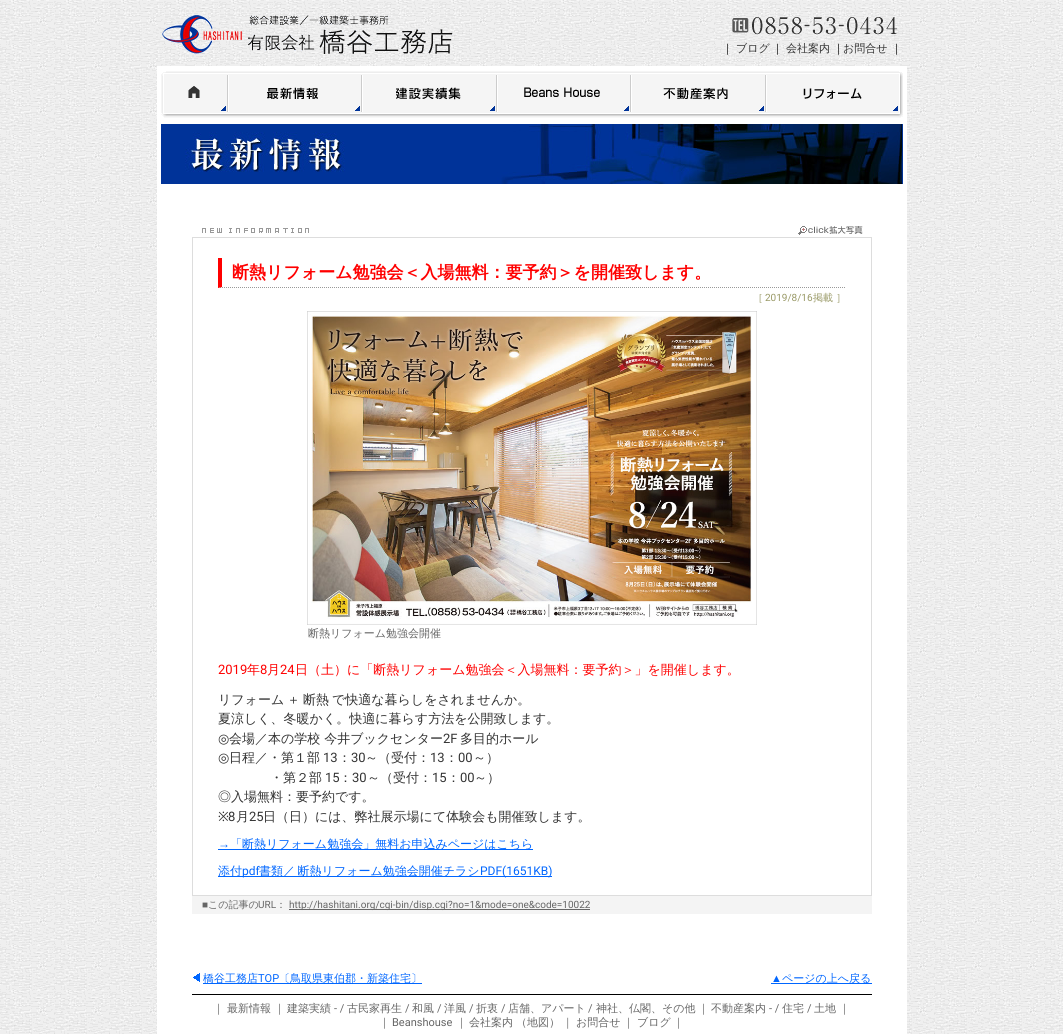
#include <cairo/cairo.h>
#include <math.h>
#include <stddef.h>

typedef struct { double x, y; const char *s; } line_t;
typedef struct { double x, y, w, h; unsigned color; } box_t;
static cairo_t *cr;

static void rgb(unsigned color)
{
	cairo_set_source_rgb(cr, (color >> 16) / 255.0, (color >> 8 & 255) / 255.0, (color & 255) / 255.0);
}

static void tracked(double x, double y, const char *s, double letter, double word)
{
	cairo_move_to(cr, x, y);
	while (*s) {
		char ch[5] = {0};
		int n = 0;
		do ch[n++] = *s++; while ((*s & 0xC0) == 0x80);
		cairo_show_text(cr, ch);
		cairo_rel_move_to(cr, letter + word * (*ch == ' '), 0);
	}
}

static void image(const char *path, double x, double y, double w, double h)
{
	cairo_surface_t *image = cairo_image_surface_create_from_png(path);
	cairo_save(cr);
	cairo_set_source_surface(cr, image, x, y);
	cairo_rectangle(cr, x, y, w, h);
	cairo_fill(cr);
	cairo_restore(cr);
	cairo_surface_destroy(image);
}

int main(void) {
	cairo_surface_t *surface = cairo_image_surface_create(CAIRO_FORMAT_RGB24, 1063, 1034);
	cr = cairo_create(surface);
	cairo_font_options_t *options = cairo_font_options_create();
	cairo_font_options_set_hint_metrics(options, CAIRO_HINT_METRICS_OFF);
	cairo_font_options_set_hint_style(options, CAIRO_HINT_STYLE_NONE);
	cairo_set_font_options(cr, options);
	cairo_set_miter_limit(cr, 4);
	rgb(0xffffff);
	cairo_paint(cr);
	image("img/1.png", 0, 0, 1063, 1034);
	image("img/2.png", 162, 15, 291, 39);
	image("img/3.png", 732, 17, 165, 18);
	rgb(0xffffff);
	cairo_rectangle(cr, 157, 66, 750, 968);
	cairo_fill(cr);
	image("img/4.png", 161, 114, 742, 4);
	image("img/5.png", 161, 71, 67, 43);
	image("img/6.png", 228, 71, 134, 42);
	image("img/7.png", 362, 71, 135, 42);
	image("img/8.png", 497, 71, 134, 42);
	image("img/9.png", 631, 71, 135, 42);
	image("img/10.png", 766, 71, 137, 43);
	image("img/11.png", 161, 124, 742, 60);
	image("img/12.png", 202, 228, 107, 5);
	image("img/13.png", 798, 226, 65, 9);
	cairo_rectangle(cr, 192.5, 237.5, 679, 658);
	rgb(0xdddddd);
	cairo_set_line_width(cr, 1);
	cairo_stroke(cr);
	cairo_new_path(cr);
	cairo_move_to(cr, 218, 287.5);
	cairo_line_to(cr, 846, 287.5);
	rgb(0x999999);
	cairo_set_dash(cr, (double[]){1, 1}, 2, 0);
	cairo_stroke(cr);
	rgb(0xff0000);
	cairo_new_path(cr);
	cairo_move_to(cr, 218, 288);
	cairo_line_to(cr, 218, 258);
	cairo_line_to(cr, 222, 258);
	cairo_line_to(cr, 222, 287);
	cairo_close_path(cr);
	cairo_fill(cr);
	image("img/14.png", 307, 311, 450, 314);
	{
		static const box_t items[] = {
			{218, 849, 315, 1, 0x0066ff},
			{218, 876, 334, 1, 0x0066ff},
			{192, 896, 680, 18, 0xf4f4f4},
			{289, 909, 301, 1, 0x666666},
		};
		for (size_t i = 0; i < sizeof items / sizeof *items; i++) {
			rgb(items[i].color);
			cairo_rectangle(cr, items[i].x, items[i].y, items[i].w, items[i].h);
			cairo_fill(cr);
		}
	}
	image("img/15.png", 193, 973, 7, 9);
	{
		static const box_t items[] = {
			{203, 983, 219, 1, 0x0066ff},
			{771, 983, 101, 1, 0x0066ff},
			{192, 994, 680, 1, 0x000000},
		};
		for (size_t i = 0; i < sizeof items / sizeof *items; i++) {
			rgb(items[i].color);
			cairo_rectangle(cr, items[i].x, items[i].y, items[i].w, items[i].h);
			cairo_fill(cr);
		}
	}
	cairo_select_font_face(cr, "WenQuanYi Zen Hei Medium", CAIRO_FONT_SLANT_NORMAL, CAIRO_FONT_WEIGHT_NORMAL);
	cairo_set_font_size(cr, 11);
	cairo_move_to(cr, 722, 52);
	cairo_show_text(cr, "｜");
	rgb(0x333333);
	cairo_move_to(cr, 736, 52);
	cairo_show_text(cr, "ブログ");
	rgb(0x000000);
	cairo_move_to(cr, 772, 52);
	cairo_show_text(cr, "｜");
	rgb(0x333333);
	cairo_move_to(cr, 786, 52);
	cairo_show_text(cr, "会社案内");
	rgb(0x000000);
	cairo_move_to(cr, 833, 52);
	cairo_show_text(cr, "｜");
	rgb(0x333333);
	cairo_move_to(cr, 843, 52);
	cairo_show_text(cr, "お問合せ");
	rgb(0x000000);
	cairo_move_to(cr, 891, 52);
	cairo_show_text(cr, "｜");
	cairo_select_font_face(cr, "WenQuanYi Zen Hei", CAIRO_FONT_SLANT_NORMAL, CAIRO_FONT_WEIGHT_BOLD);
	cairo_set_font_size(cr, 17);
	rgb(0xff0000);
	cairo_move_to(cr, 232, 278);
	cairo_show_text(cr, "断熱リフォーム勉強会＜入場無料：要予約＞を開催致します。");
	cairo_select_font_face(cr, "WenQuanYi Zen Hei Medium", CAIRO_FONT_SLANT_NORMAL, CAIRO_FONT_WEIGHT_NORMAL);
	cairo_set_font_size(cr, 10);
	rgb(0x999966);
	cairo_move_to(cr, 753, 301);
	cairo_show_text(cr, "［");
	cairo_select_font_face(cr, "Roboto", CAIRO_FONT_SLANT_NORMAL, CAIRO_FONT_WEIGHT_NORMAL);
	cairo_move_to(cr, 765, 301);
	cairo_show_text(cr, "2019/8/16");
	cairo_select_font_face(cr, "WenQuanYi Zen Hei Medium", CAIRO_FONT_SLANT_NORMAL, CAIRO_FONT_WEIGHT_NORMAL);
	cairo_move_to(cr, 813, 301);
	cairo_show_text(cr, "掲載 ］");
	cairo_set_font_size(cr, 11);
	rgb(0x666666);
	cairo_move_to(cr, 308, 637);
	cairo_show_text(cr, "断熱リフォーム勉強会開催");
	cairo_select_font_face(cr, "Roboto", CAIRO_FONT_SLANT_NORMAL, CAIRO_FONT_WEIGHT_NORMAL);
	cairo_set_font_size(cr, 13);
	rgb(0xff0000);
	cairo_move_to(cr, 218, 674);
	cairo_show_text(cr, "2019");
	cairo_select_font_face(cr, "WenQuanYi Zen Hei Medium", CAIRO_FONT_SLANT_NORMAL, CAIRO_FONT_WEIGHT_NORMAL);
	cairo_move_to(cr, 247, 674);
	cairo_show_text(cr, "年");
	cairo_select_font_face(cr, "Roboto", CAIRO_FONT_SLANT_NORMAL, CAIRO_FONT_WEIGHT_NORMAL);
	cairo_move_to(cr, 260, 674);
	cairo_show_text(cr, "8");
	cairo_select_font_face(cr, "WenQuanYi Zen Hei Medium", CAIRO_FONT_SLANT_NORMAL, CAIRO_FONT_WEIGHT_NORMAL);
	cairo_move_to(cr, 267, 674);
	cairo_show_text(cr, "月");
	cairo_select_font_face(cr, "Roboto", CAIRO_FONT_SLANT_NORMAL, CAIRO_FONT_WEIGHT_NORMAL);
	cairo_move_to(cr, 280, 674);
	cairo_show_text(cr, "24");
	cairo_select_font_face(cr, "WenQuanYi Zen Hei Medium", CAIRO_FONT_SLANT_NORMAL, CAIRO_FONT_WEIGHT_NORMAL);
	cairo_move_to(cr, 295, 674);
	cairo_show_text(cr, "日（土）に「断熱リフォーム勉強会＜入場無料：要予約＞」を開催します。");
	rgb(0x333333);
	tracked(218, 704, "リフォーム ＋ 断熱 で快適な暮らしをされませんか。", 0, -1);
	cairo_move_to(cr, 218, 723);
	cairo_show_text(cr, "夏涼しく、冬暖かく。快適に暮らす方法を公開致します。");
	cairo_select_font_face(cr, "DejaVu Sans", CAIRO_FONT_SLANT_NORMAL, CAIRO_FONT_WEIGHT_NORMAL);
	cairo_move_to(cr, 218, 743);
	cairo_show_text(cr, "◎");
	cairo_select_font_face(cr, "WenQuanYi Zen Hei Medium", CAIRO_FONT_SLANT_NORMAL, CAIRO_FONT_WEIGHT_NORMAL);
	cairo_move_to(cr, 229, 743);
	cairo_show_text(cr, "会場／本の学校 今井ブックセンター");
	cairo_select_font_face(cr, "Roboto", CAIRO_FONT_SLANT_NORMAL, CAIRO_FONT_WEIGHT_NORMAL);
	cairo_move_to(cr, 443, 743);
	cairo_show_text(cr, "2F");
	cairo_select_font_face(cr, "WenQuanYi Zen Hei Medium", CAIRO_FONT_SLANT_NORMAL, CAIRO_FONT_WEIGHT_NORMAL);
	cairo_move_to(cr, 460, 743);
	cairo_show_text(cr, "多目的ホール");
	cairo_select_font_face(cr, "DejaVu Sans", CAIRO_FONT_SLANT_NORMAL, CAIRO_FONT_WEIGHT_NORMAL);
	cairo_move_to(cr, 218, 762);
	cairo_show_text(cr, "◎");
	cairo_select_font_face(cr, "WenQuanYi Zen Hei Medium", CAIRO_FONT_SLANT_NORMAL, CAIRO_FONT_WEIGHT_NORMAL);
	cairo_move_to(cr, 229, 762);
	cairo_show_text(cr, "日程／・第１部");
	cairo_select_font_face(cr, "Roboto", CAIRO_FONT_SLANT_NORMAL, CAIRO_FONT_WEIGHT_NORMAL);
	cairo_move_to(cr, 323, 762);
	cairo_show_text(cr, "13");
	cairo_select_font_face(cr, "WenQuanYi Zen Hei Medium", CAIRO_FONT_SLANT_NORMAL, CAIRO_FONT_WEIGHT_NORMAL);
	cairo_move_to(cr, 338, 762);
	cairo_show_text(cr, "：");
	cairo_select_font_face(cr, "Roboto", CAIRO_FONT_SLANT_NORMAL, CAIRO_FONT_WEIGHT_NORMAL);
	cairo_move_to(cr, 351, 762);
	cairo_show_text(cr, "30");
	cairo_select_font_face(cr, "WenQuanYi Zen Hei Medium", CAIRO_FONT_SLANT_NORMAL, CAIRO_FONT_WEIGHT_NORMAL);
	cairo_move_to(cr, 365, 762);
	cairo_show_text(cr, "～（受付：");
	cairo_select_font_face(cr, "Roboto", CAIRO_FONT_SLANT_NORMAL, CAIRO_FONT_WEIGHT_NORMAL);
	cairo_move_to(cr, 430, 762);
	cairo_show_text(cr, "13");
	cairo_select_font_face(cr, "WenQuanYi Zen Hei Medium", CAIRO_FONT_SLANT_NORMAL, CAIRO_FONT_WEIGHT_NORMAL);
	cairo_move_to(cr, 445, 762);
	cairo_show_text(cr, "：");
	cairo_select_font_face(cr, "Roboto", CAIRO_FONT_SLANT_NORMAL, CAIRO_FONT_WEIGHT_NORMAL);
	cairo_move_to(cr, 458, 762);
	cairo_show_text(cr, "00");
	cairo_select_font_face(cr, "WenQuanYi Zen Hei Medium", CAIRO_FONT_SLANT_NORMAL, CAIRO_FONT_WEIGHT_NORMAL);
	cairo_move_to(cr, 473, 762);
	cairo_show_text(cr, "～）");
	cairo_move_to(cr, 270, 782);
	cairo_show_text(cr, "・第２部");
	cairo_select_font_face(cr, "Roboto", CAIRO_FONT_SLANT_NORMAL, CAIRO_FONT_WEIGHT_NORMAL);
	cairo_move_to(cr, 325, 782);
	cairo_show_text(cr, "15");
	cairo_select_font_face(cr, "WenQuanYi Zen Hei Medium", CAIRO_FONT_SLANT_NORMAL, CAIRO_FONT_WEIGHT_NORMAL);
	cairo_move_to(cr, 339, 782);
	cairo_show_text(cr, "：");
	cairo_select_font_face(cr, "Roboto", CAIRO_FONT_SLANT_NORMAL, CAIRO_FONT_WEIGHT_NORMAL);
	cairo_move_to(cr, 352, 782);
	cairo_show_text(cr, "30");
	cairo_select_font_face(cr, "WenQuanYi Zen Hei Medium", CAIRO_FONT_SLANT_NORMAL, CAIRO_FONT_WEIGHT_NORMAL);
	cairo_move_to(cr, 367, 782);
	cairo_show_text(cr, "～（受付：");
	cairo_select_font_face(cr, "Roboto", CAIRO_FONT_SLANT_NORMAL, CAIRO_FONT_WEIGHT_NORMAL);
	cairo_move_to(cr, 432, 782);
	cairo_show_text(cr, "15");
	cairo_select_font_face(cr, "WenQuanYi Zen Hei Medium", CAIRO_FONT_SLANT_NORMAL, CAIRO_FONT_WEIGHT_NORMAL);
	cairo_move_to(cr, 447, 782);
	cairo_show_text(cr, "：");
	cairo_select_font_face(cr, "Roboto", CAIRO_FONT_SLANT_NORMAL, CAIRO_FONT_WEIGHT_NORMAL);
	cairo_move_to(cr, 460, 782);
	cairo_show_text(cr, "00");
	cairo_select_font_face(cr, "WenQuanYi Zen Hei Medium", CAIRO_FONT_SLANT_NORMAL, CAIRO_FONT_WEIGHT_NORMAL);
	cairo_move_to(cr, 474, 782);
	cairo_show_text(cr, "～）");
	cairo_move_to(cr, 218, 801);
	cairo_show_text(cr, "◎入場無料：要予約です。");
	cairo_select_font_face(cr, "Noto Sans", CAIRO_FONT_SLANT_NORMAL, CAIRO_FONT_WEIGHT_NORMAL);
	cairo_move_to(cr, 218, 821);
	cairo_show_text(cr, "※");
	cairo_select_font_face(cr, "Roboto", CAIRO_FONT_SLANT_NORMAL, CAIRO_FONT_WEIGHT_NORMAL);
	cairo_move_to(cr, 228, 821);
	cairo_show_text(cr, "8");
	cairo_select_font_face(cr, "WenQuanYi Zen Hei Medium", CAIRO_FONT_SLANT_NORMAL, CAIRO_FONT_WEIGHT_NORMAL);
	cairo_move_to(cr, 236, 821);
	cairo_show_text(cr, "月");
	cairo_select_font_face(cr, "Roboto", CAIRO_FONT_SLANT_NORMAL, CAIRO_FONT_WEIGHT_NORMAL);
	cairo_move_to(cr, 249, 821);
	cairo_show_text(cr, "25");
	cairo_select_font_face(cr, "WenQuanYi Zen Hei Medium", CAIRO_FONT_SLANT_NORMAL, CAIRO_FONT_WEIGHT_NORMAL);
	cairo_move_to(cr, 263, 821);
	cairo_show_text(cr, "日（日）には、弊社展示場にて体験会も開催致します。");
	cairo_select_font_face(cr, "Liberation Sans", CAIRO_FONT_SLANT_NORMAL, CAIRO_FONT_WEIGHT_NORMAL);
	cairo_set_font_size(cr, 12);
	rgb(0x0066ff);
	cairo_move_to(cr, 218, 848);
	cairo_show_text(cr, "→");
	cairo_select_font_face(cr, "WenQuanYi Zen Hei Medium", CAIRO_FONT_SLANT_NORMAL, CAIRO_FONT_WEIGHT_NORMAL);
	cairo_move_to(cr, 230, 848);
	cairo_show_text(cr, "「断熱リフォーム勉強会」無料お申込みページはこちら");
	cairo_move_to(cr, 218, 875);
	cairo_show_text(cr, "添付");
	cairo_select_font_face(cr, "Roboto", CAIRO_FONT_SLANT_NORMAL, CAIRO_FONT_WEIGHT_NORMAL);
	cairo_move_to(cr, 242, 875);
	cairo_show_text(cr, "pdf");
	cairo_select_font_face(cr, "WenQuanYi Zen Hei Medium", CAIRO_FONT_SLANT_NORMAL, CAIRO_FONT_WEIGHT_NORMAL);
	tracked(259, 875, "書類／ 断熱リフォーム勉強会開催チラシ", 0, -1);
	cairo_select_font_face(cr, "Roboto", CAIRO_FONT_SLANT_NORMAL, CAIRO_FONT_WEIGHT_NORMAL);
	cairo_move_to(cr, 480, 875);
	cairo_show_text(cr, "PDF(1651KB)");
	cairo_select_font_face(cr, "Liberation Sans", CAIRO_FONT_SLANT_NORMAL, CAIRO_FONT_WEIGHT_NORMAL);
	cairo_set_font_size(cr, 10);
	rgb(0x666666);
	cairo_move_to(cr, 202, 908);
	cairo_show_text(cr, "■");
	cairo_select_font_face(cr, "WenQuanYi Zen Hei Medium", CAIRO_FONT_SLANT_NORMAL, CAIRO_FONT_WEIGHT_NORMAL);
	cairo_move_to(cr, 208, 908);
	cairo_show_text(cr, "この記事の");
	cairo_select_font_face(cr, "Roboto", CAIRO_FONT_SLANT_NORMAL, CAIRO_FONT_WEIGHT_NORMAL);
	cairo_move_to(cr, 258, 908);
	cairo_show_text(cr, "URL");
	cairo_select_font_face(cr, "WenQuanYi Zen Hei Medium", CAIRO_FONT_SLANT_NORMAL, CAIRO_FONT_WEIGHT_NORMAL);
	cairo_move_to(cr, 276, 908);
	cairo_show_text(cr, "：");
	cairo_select_font_face(cr, "Roboto", CAIRO_FONT_SLANT_NORMAL, CAIRO_FONT_WEIGHT_NORMAL);
	cairo_move_to(cr, 289, 908);
	cairo_show_text(cr, "http://hashitani.org/cgi-bin/disp.cgi?no=1&mode=one&code=10022");
	cairo_select_font_face(cr, "WenQuanYi Zen Hei Medium", CAIRO_FONT_SLANT_NORMAL, CAIRO_FONT_WEIGHT_NORMAL);
	cairo_set_font_size(cr, 11);
	rgb(0x0066ff);
	cairo_move_to(cr, 203, 982);
	cairo_show_text(cr, "橋谷工務店");
	cairo_select_font_face(cr, "Roboto", CAIRO_FONT_SLANT_NORMAL, CAIRO_FONT_WEIGHT_NORMAL);
	cairo_move_to(cr, 258, 982);
	cairo_show_text(cr, "TOP");
	cairo_select_font_face(cr, "WenQuanYi Zen Hei Medium", CAIRO_FONT_SLANT_NORMAL, CAIRO_FONT_WEIGHT_NORMAL);
	cairo_move_to(cr, 279, 982);
	cairo_show_text(cr, "〔鳥取県東伯郡・新築住宅〕");
	cairo_select_font_face(cr, "Liberation Sans", CAIRO_FONT_SLANT_NORMAL, CAIRO_FONT_WEIGHT_NORMAL);
	cairo_move_to(cr, 771, 982);
	cairo_show_text(cr, "▲");
	cairo_select_font_face(cr, "WenQuanYi Zen Hei Medium", CAIRO_FONT_SLANT_NORMAL, CAIRO_FONT_WEIGHT_NORMAL);
	cairo_move_to(cr, 782, 982);
	cairo_show_text(cr, "ページの上へ戻る");
	rgb(0x666666);
	{
		static const line_t items[] = {
			{213, 1012, "｜"},
			{227, 1012, "最新情報"},
			{274, 1012, "｜"},
			{287, 1012, "建築実績"},
		};
		for (size_t i = 0; i < sizeof items / sizeof *items; i++) {
			cairo_move_to(cr, items[i].x, items[i].y);
			cairo_show_text(cr, items[i].s);
		}
	}
	cairo_select_font_face(cr, "Roboto", CAIRO_FONT_SLANT_NORMAL, CAIRO_FONT_WEIGHT_NORMAL);
	cairo_move_to(cr, 334, 1012);
	cairo_show_text(cr, "- /");
	cairo_select_font_face(cr, "WenQuanYi Zen Hei Medium", CAIRO_FONT_SLANT_NORMAL, CAIRO_FONT_WEIGHT_NORMAL);
	cairo_move_to(cr, 347, 1012);
	cairo_show_text(cr, "古民家再生");
	cairo_select_font_face(cr, "Roboto", CAIRO_FONT_SLANT_NORMAL, CAIRO_FONT_WEIGHT_NORMAL);
	cairo_move_to(cr, 405, 1012);
	cairo_show_text(cr, "/");
	cairo_select_font_face(cr, "WenQuanYi Zen Hei Medium", CAIRO_FONT_SLANT_NORMAL, CAIRO_FONT_WEIGHT_NORMAL);
	cairo_move_to(cr, 412, 1012);
	cairo_show_text(cr, "和風");
	cairo_select_font_face(cr, "Roboto", CAIRO_FONT_SLANT_NORMAL, CAIRO_FONT_WEIGHT_NORMAL);
	cairo_move_to(cr, 437, 1012);
	cairo_show_text(cr, "/");
	cairo_select_font_face(cr, "WenQuanYi Zen Hei Medium", CAIRO_FONT_SLANT_NORMAL, CAIRO_FONT_WEIGHT_NORMAL);
	cairo_move_to(cr, 444, 1012);
	cairo_show_text(cr, "洋風");
	cairo_select_font_face(cr, "Roboto", CAIRO_FONT_SLANT_NORMAL, CAIRO_FONT_WEIGHT_NORMAL);
	cairo_move_to(cr, 469, 1012);
	cairo_show_text(cr, "/");
	cairo_select_font_face(cr, "WenQuanYi Zen Hei Medium", CAIRO_FONT_SLANT_NORMAL, CAIRO_FONT_WEIGHT_NORMAL);
	cairo_move_to(cr, 476, 1012);
	cairo_show_text(cr, "折衷");
	cairo_select_font_face(cr, "Roboto", CAIRO_FONT_SLANT_NORMAL, CAIRO_FONT_WEIGHT_NORMAL);
	cairo_move_to(cr, 501, 1012);
	cairo_show_text(cr, "/");
	cairo_select_font_face(cr, "WenQuanYi Zen Hei Medium", CAIRO_FONT_SLANT_NORMAL, CAIRO_FONT_WEIGHT_NORMAL);
	cairo_move_to(cr, 508, 1012);
	cairo_show_text(cr, "店舗、アパート");
	cairo_select_font_face(cr, "Roboto", CAIRO_FONT_SLANT_NORMAL, CAIRO_FONT_WEIGHT_NORMAL);
	cairo_move_to(cr, 588, 1012);
	cairo_show_text(cr, "/");
	cairo_select_font_face(cr, "WenQuanYi Zen Hei Medium", CAIRO_FONT_SLANT_NORMAL, CAIRO_FONT_WEIGHT_NORMAL);
	{
		static const line_t items[] = {
			{596, 1012, "神社、仏閣、その他"},
			{698, 1012, "｜"},
			{711, 1012, "不動産案内"},
		};
		for (size_t i = 0; i < sizeof items / sizeof *items; i++) {
			cairo_move_to(cr, items[i].x, items[i].y);
			cairo_show_text(cr, items[i].s);
		}
	}
	cairo_select_font_face(cr, "Roboto", CAIRO_FONT_SLANT_NORMAL, CAIRO_FONT_WEIGHT_NORMAL);
	cairo_move_to(cr, 769, 1012);
	cairo_show_text(cr, "- /");
	cairo_select_font_face(cr, "WenQuanYi Zen Hei Medium", CAIRO_FONT_SLANT_NORMAL, CAIRO_FONT_WEIGHT_NORMAL);
	cairo_move_to(cr, 782, 1012);
	cairo_show_text(cr, "住宅");
	cairo_select_font_face(cr, "Roboto", CAIRO_FONT_SLANT_NORMAL, CAIRO_FONT_WEIGHT_NORMAL);
	cairo_move_to(cr, 807, 1012);
	cairo_show_text(cr, "/");
	cairo_select_font_face(cr, "WenQuanYi Zen Hei Medium", CAIRO_FONT_SLANT_NORMAL, CAIRO_FONT_WEIGHT_NORMAL);
	{
		static const line_t items[] = {
			{814, 1012, "土地"},
			{839, 1012, "｜"},
			{379, 1026, "｜"},
		};
		for (size_t i = 0; i < sizeof items / sizeof *items; i++) {
			cairo_move_to(cr, items[i].x, items[i].y);
			cairo_show_text(cr, items[i].s);
		}
	}
	cairo_select_font_face(cr, "Roboto", CAIRO_FONT_SLANT_NORMAL, CAIRO_FONT_WEIGHT_NORMAL);
	cairo_move_to(cr, 392, 1026);
	cairo_show_text(cr, "Beanshouse");
	cairo_select_font_face(cr, "WenQuanYi Zen Hei Medium", CAIRO_FONT_SLANT_NORMAL, CAIRO_FONT_WEIGHT_NORMAL);
	{
		static const line_t items[] = {
			{456, 1026, "｜"},
			{469, 1026, "会社案内"},
			{516, 1026, "（地図"},
		};
		for (size_t i = 0; i < sizeof items / sizeof *items; i++) {
			cairo_move_to(cr, items[i].x, items[i].y);
			cairo_show_text(cr, items[i].s);
		}
	}
	tracked(549, 1026, "） ｜", 0, -1);
	{
		static const line_t items[] = {
			{576, 1026, "お問合せ"},
			{623, 1026, "｜"},
			{637, 1026, "ブログ"},
			{673, 1026, "｜"},
		};
		for (size_t i = 0; i < sizeof items / sizeof *items; i++) {
			cairo_move_to(cr, items[i].x, items[i].y);
			cairo_show_text(cr, items[i].s);
		}
	}
	cairo_surface_write_to_png(surface, "page.png");
	cairo_font_options_destroy(options);
	cairo_destroy(cr);
	cairo_surface_destroy(surface);
	return 0;
}
